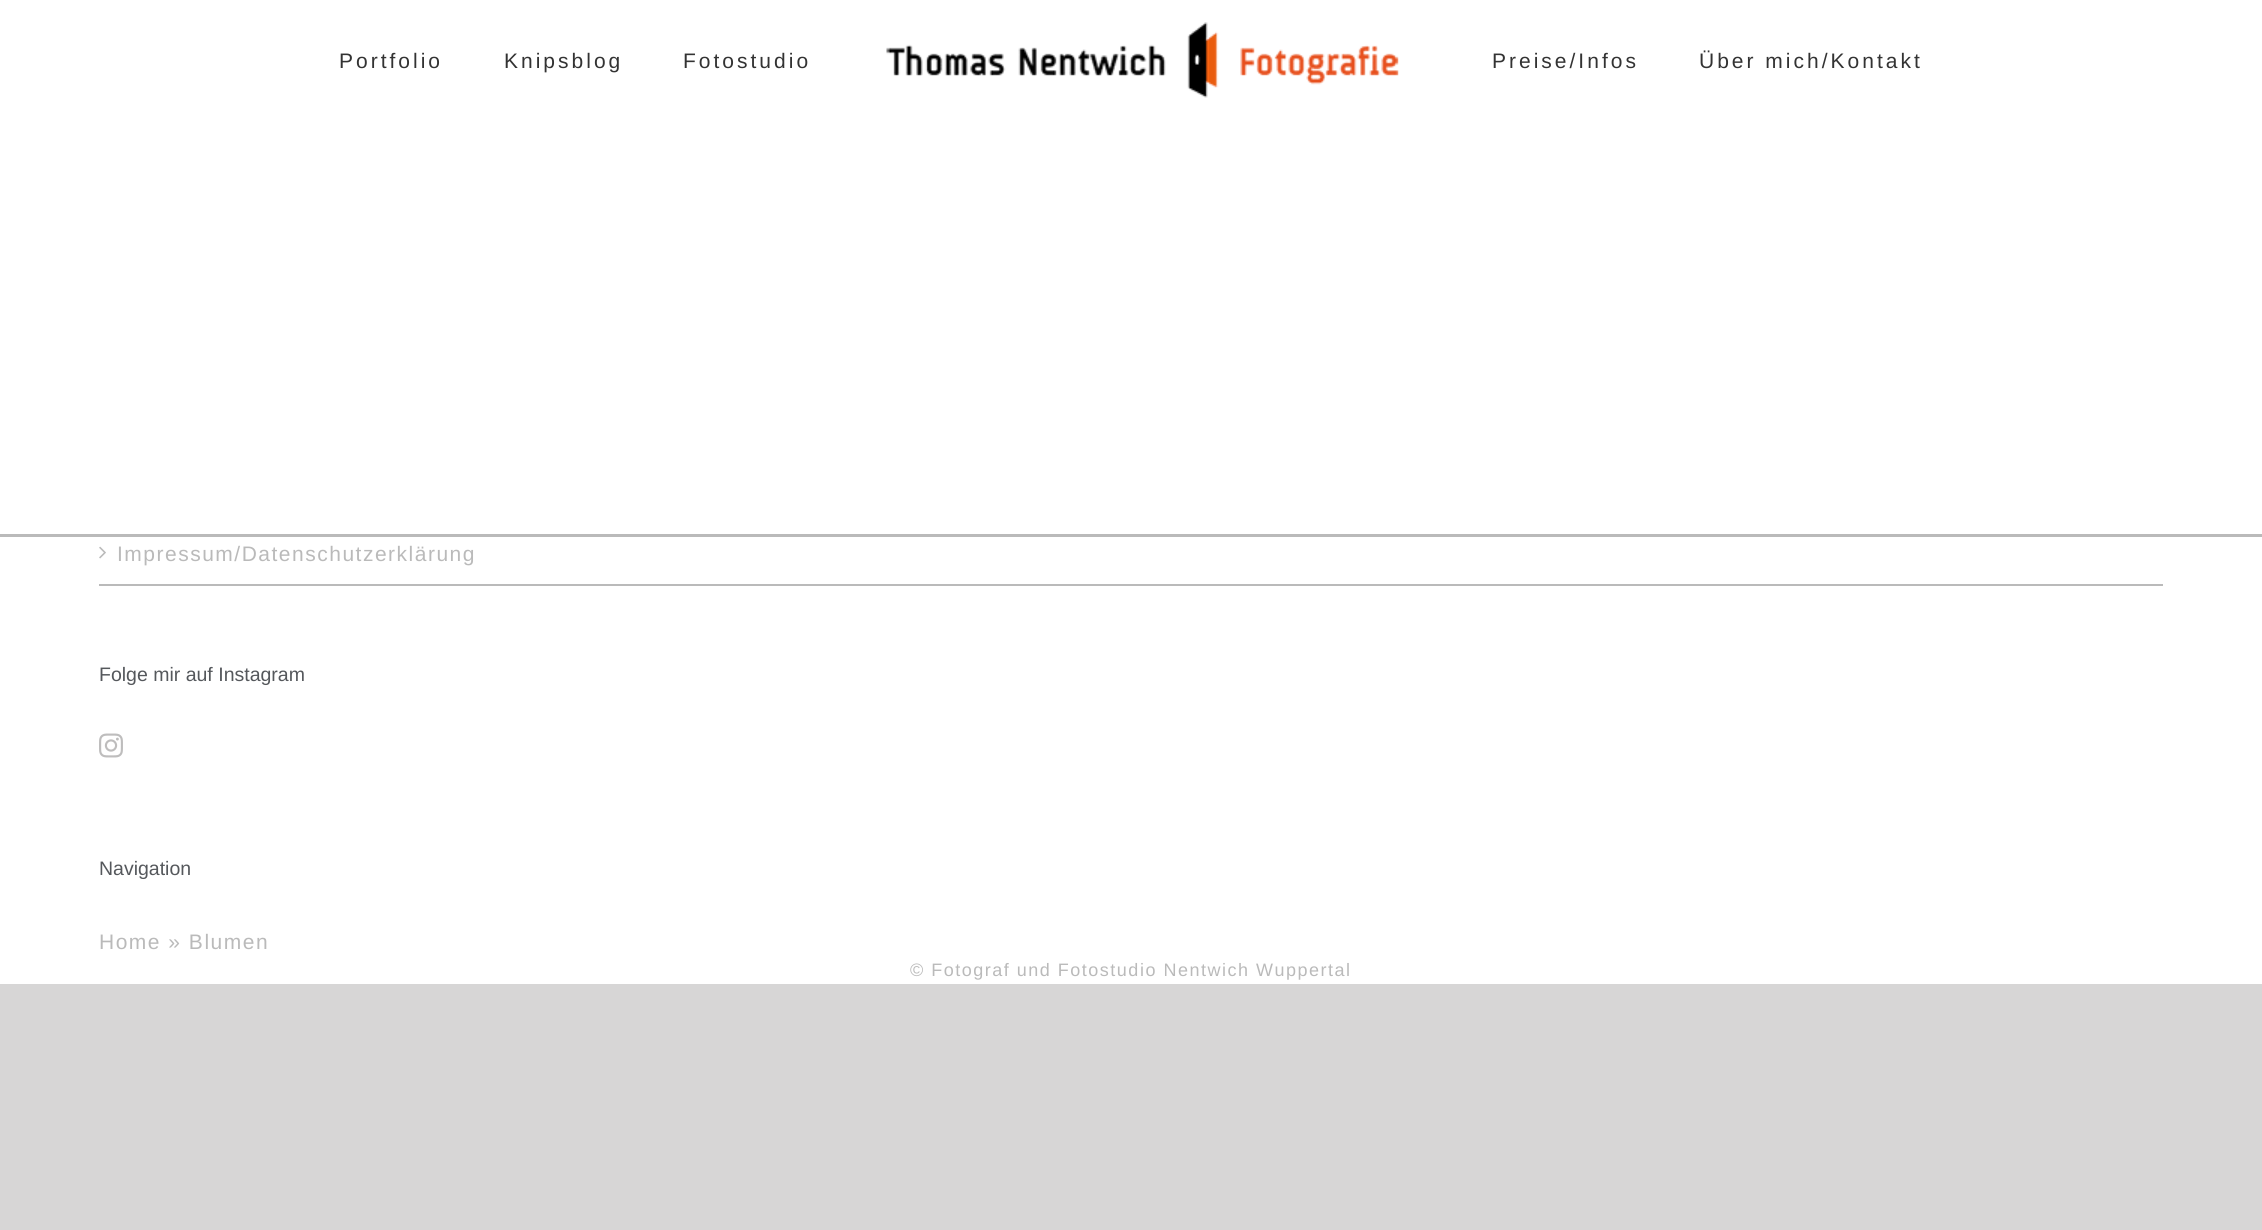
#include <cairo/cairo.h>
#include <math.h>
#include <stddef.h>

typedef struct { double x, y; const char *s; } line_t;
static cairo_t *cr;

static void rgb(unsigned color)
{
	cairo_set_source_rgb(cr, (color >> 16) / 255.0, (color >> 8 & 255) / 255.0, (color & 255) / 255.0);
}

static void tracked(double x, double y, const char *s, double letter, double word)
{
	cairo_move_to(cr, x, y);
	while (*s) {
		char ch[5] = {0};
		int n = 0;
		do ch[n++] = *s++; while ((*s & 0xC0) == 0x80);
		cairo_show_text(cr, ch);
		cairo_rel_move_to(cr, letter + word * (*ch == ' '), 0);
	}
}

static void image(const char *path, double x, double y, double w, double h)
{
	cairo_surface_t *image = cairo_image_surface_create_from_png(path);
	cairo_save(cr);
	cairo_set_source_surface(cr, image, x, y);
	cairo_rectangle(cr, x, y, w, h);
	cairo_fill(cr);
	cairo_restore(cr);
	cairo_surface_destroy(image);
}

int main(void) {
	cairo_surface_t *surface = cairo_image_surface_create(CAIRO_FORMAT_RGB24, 2262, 1230);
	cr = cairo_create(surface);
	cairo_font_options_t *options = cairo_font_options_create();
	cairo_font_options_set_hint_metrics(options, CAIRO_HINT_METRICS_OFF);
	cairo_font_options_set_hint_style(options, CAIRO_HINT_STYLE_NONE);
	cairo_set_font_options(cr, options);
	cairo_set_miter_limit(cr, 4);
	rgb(0xd7d6d6);
	cairo_paint(cr);
	rgb(0xffffff);
	cairo_rectangle(cr, 0, 0, 2262, 984);
	cairo_fill(cr);
	image("img/1.png", 886, 22, 513, 76);
	rgb(0xbababa);
	cairo_rectangle(cr, 0, 534, 2262, 3);
	cairo_fill(cr);
	cairo_rectangle(cr, 99, 584, 2064, 2);
	cairo_fill(cr);
	image("img/2.png", 99, 546, 7, 13);
	image("img/3.png", 99, 733, 24, 25);
	cairo_select_font_face(cr, "Liberation Sans", CAIRO_FONT_SLANT_NORMAL, CAIRO_FONT_WEIGHT_NORMAL);
	cairo_set_font_size(cr, 21);
	rgb(0x333333);
	{
		static const line_t items[] = {
			{339, 68, "Portfolio"},
			{504, 68, "Knipsblog"},
			{683, 68, "Fotostudio"},
			{1492, 68, "Preise/Infos"},
			{1699, 68, "Über mich/Kontakt"},
		};
		for (size_t i = 0; i < sizeof items / sizeof *items; i++) {
			tracked(items[i].x, items[i].y, items[i].s, 3, 0);
		}
	}
	rgb(0xbababa);
	tracked(117, 561, "Impressum/Datenschutzerklärung", 1.5, 0);
	cairo_set_font_size(cr, 19.5);
	rgb(0x55585c);
	cairo_move_to(cr, 99, 681);
	cairo_show_text(cr, "Folge mir auf Instagram");
	cairo_move_to(cr, 99, 875);
	cairo_show_text(cr, "Navigation");
	cairo_set_font_size(cr, 21);
	rgb(0xbababa);
	tracked(99, 949, "Home » Blumen", 1.5, 0);
	cairo_set_font_size(cr, 18);
	tracked(910, 976, "© Fotograf und Fotostudio Nentwich Wuppertal", 1.5, 0);
	cairo_surface_write_to_png(surface, "page.png");
	cairo_font_options_destroy(options);
	cairo_destroy(cr);
	cairo_surface_destroy(surface);
	return 0;
}
